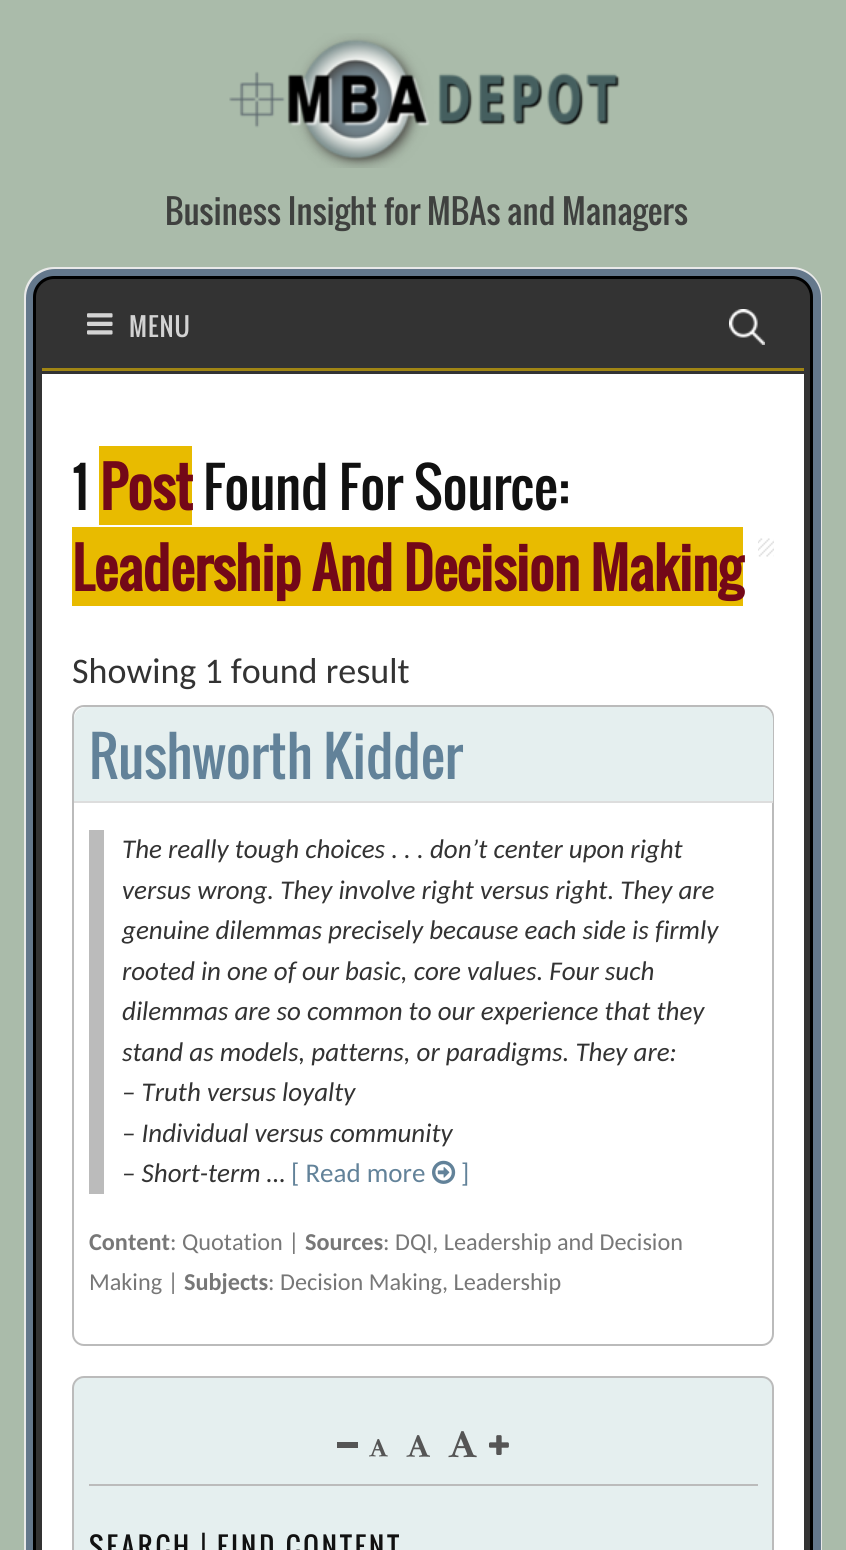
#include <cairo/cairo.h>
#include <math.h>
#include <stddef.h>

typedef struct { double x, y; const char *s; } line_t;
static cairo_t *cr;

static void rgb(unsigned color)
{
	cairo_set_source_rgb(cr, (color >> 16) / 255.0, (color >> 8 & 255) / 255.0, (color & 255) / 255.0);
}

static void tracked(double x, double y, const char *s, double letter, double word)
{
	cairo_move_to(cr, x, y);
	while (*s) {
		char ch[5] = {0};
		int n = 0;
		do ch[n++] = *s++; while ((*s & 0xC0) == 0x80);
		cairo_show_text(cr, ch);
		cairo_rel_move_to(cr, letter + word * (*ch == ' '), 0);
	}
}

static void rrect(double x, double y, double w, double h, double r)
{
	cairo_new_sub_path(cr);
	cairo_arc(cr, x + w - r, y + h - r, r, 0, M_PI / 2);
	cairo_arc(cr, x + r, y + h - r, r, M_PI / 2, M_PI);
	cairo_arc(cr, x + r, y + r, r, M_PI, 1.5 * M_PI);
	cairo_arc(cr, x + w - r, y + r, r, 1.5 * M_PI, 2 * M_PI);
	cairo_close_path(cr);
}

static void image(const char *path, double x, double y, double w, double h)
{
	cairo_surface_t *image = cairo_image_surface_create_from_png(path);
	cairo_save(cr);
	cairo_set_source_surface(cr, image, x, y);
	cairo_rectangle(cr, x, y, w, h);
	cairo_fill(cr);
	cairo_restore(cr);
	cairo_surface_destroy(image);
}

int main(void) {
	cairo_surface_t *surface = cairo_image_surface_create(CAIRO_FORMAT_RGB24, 846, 1550);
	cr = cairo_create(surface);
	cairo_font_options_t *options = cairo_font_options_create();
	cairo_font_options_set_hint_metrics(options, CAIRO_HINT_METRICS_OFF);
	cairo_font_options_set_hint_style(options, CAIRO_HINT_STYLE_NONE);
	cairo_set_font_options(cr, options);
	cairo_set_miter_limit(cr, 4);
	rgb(0xaabbaa);
	cairo_paint(cr);
	image("img/1.png", 229, 33, 391, 135);
	rrect(33, 276, 780, 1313, 21);
	rgb(0xe9e9e9);
	cairo_set_line_width(cr, 18);
	cairo_stroke(cr);
	rrect(34.5, 277.5, 778, 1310, 20.5);
	rgb(0x64788c);
	cairo_set_line_width(cr, 17);
	cairo_stroke(cr);
	rrect(37.5, 280.5, 771, 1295, 16.5);
	rgb(0x000000);
	cairo_set_line_width(cr, 9);
	cairo_stroke(cr);
	rrect(39, 282, 768, 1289, 15);
	rgb(0x333333);
	cairo_set_line_width(cr, 6);
	cairo_stroke(cr);
	rgb(0xffffff);
	rrect(42, 285, 762, 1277, 12);
	cairo_fill(cr);
	rgb(0x333333);
	cairo_new_path(cr);
	cairo_move_to(cr, 51, 282);
	cairo_line_to(cr, 795, 282);
	cairo_curve_to(cr, 801.5, 282, 807, 287.5, 807, 294);
	cairo_line_to(cr, 807, 374);
	cairo_line_to(cr, 39, 374);
	cairo_line_to(cr, 39, 294);
	cairo_curve_to(cr, 39, 287.5, 44.5, 282, 51, 282);
	cairo_close_path(cr);
	cairo_fill(cr);
	rgb(0xa08514);
	cairo_rectangle(cr, 42, 368, 762, 3);
	cairo_fill(cr);
	image("img/2.png", 87, 313, 26, 22);
	image("img/3.png", 729, 309, 36, 36);
	image("img/4.png", 758, 538, 16, 19);
	rgb(0xe8bb00);
	cairo_rectangle(cr, 99, 446, 93, 79);
	cairo_fill(cr);
	cairo_rectangle(cr, 72, 527, 671, 79);
	cairo_fill(cr);
	rrect(73, 706, 700, 639, 11);
	rgb(0xbbbbbb);
	cairo_set_line_width(cr, 2);
	cairo_stroke(cr);
	rgb(0xe5efef);
	cairo_new_path(cr);
	cairo_move_to(cr, 86, 707);
	cairo_line_to(cr, 761, 707);
	cairo_curve_to(cr, 767.5, 707, 773, 712.5, 773, 719);
	cairo_line_to(cr, 773, 803);
	cairo_line_to(cr, 74, 803);
	cairo_line_to(cr, 74, 719);
	cairo_curve_to(cr, 74, 712.5, 79.5, 707, 86, 707);
	cairo_close_path(cr);
	cairo_fill(cr);
	rgb(0xdddddd);
	cairo_rectangle(cr, 74, 801, 699, 2);
	cairo_fill(cr);
	rgb(0xbbbbbb);
	cairo_rectangle(cr, 89, 830, 15, 364);
	cairo_fill(cr);
	image("img/5.png", 432, 1160, 24, 24);
	rgb(0xe5efef);
	rrect(73, 1377, 700, 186, 11);
	cairo_fill_preserve(cr);
	rgb(0xbbbbbb);
	cairo_stroke(cr);
	cairo_rectangle(cr, 89, 1484, 669, 2);
	cairo_fill(cr);
	rgb(0x555555);
	cairo_rectangle(cr, 337, 1442, 21, 6);
	cairo_fill(cr);
	image("img/6.png", 369, 1439, 19, 18);
	image("img/7.png", 406, 1435, 24, 22);
	image("img/8.png", 448, 1431, 29, 27);
	image("img/9.png", 489, 1435, 20, 20);
	cairo_select_font_face(cr, "Oswald", CAIRO_FONT_SLANT_NORMAL, CAIRO_FONT_WEIGHT_NORMAL);
	cairo_set_font_size(cr, 33);
	rgb(0x3f413f);
	cairo_move_to(cr, 165, 225);
	cairo_show_text(cr, "Business Insight for MBAs and Managers");
	cairo_set_font_size(cr, 25);
	rgb(0xd3d3d3);
	tracked(129, 337, "MENU", 1, 0);
	cairo_set_font_size(cr, 54);
	rgb(0x111111);
	tracked(72, 510, "1", -0.3, 0);
	cairo_select_font_face(cr, "Oswald", CAIRO_FONT_SLANT_NORMAL, CAIRO_FONT_WEIGHT_BOLD);
	rgb(0x730818);
	tracked(100, 510, "Post", -0.3, 0);
	cairo_select_font_face(cr, "Oswald", CAIRO_FONT_SLANT_NORMAL, CAIRO_FONT_WEIGHT_NORMAL);
	rgb(0x111111);
	tracked(203, 510, "Found For Source:", -0.3, 0);
	cairo_select_font_face(cr, "Oswald", CAIRO_FONT_SLANT_NORMAL, CAIRO_FONT_WEIGHT_BOLD);
	rgb(0x730818);
	tracked(72, 591, "Leadership And Decision Making", -0.3, 0);
	cairo_select_font_face(cr, "Carlito", CAIRO_FONT_SLANT_NORMAL, CAIRO_FONT_WEIGHT_NORMAL);
	cairo_set_font_size(cr, 36);
	rgb(0x333333);
	cairo_move_to(cr, 72, 683);
	cairo_show_text(cr, "Showing 1 found result");
	cairo_select_font_face(cr, "Oswald", CAIRO_FONT_SLANT_NORMAL, CAIRO_FONT_WEIGHT_NORMAL);
	cairo_set_font_size(cr, 54);
	rgb(0x628299);
	tracked(89, 779, "Rushworth Kidder", -0.3, 0);
	cairo_select_font_face(cr, "Carlito", CAIRO_FONT_SLANT_ITALIC, CAIRO_FONT_WEIGHT_NORMAL);
	cairo_set_font_size(cr, 27);
	rgb(0x333333);
	{
		static const line_t items[] = {
			{122, 858, "The really tough choices . . . don’t center upon right"},
			{122, 899, "versus wrong. They involve right versus right. They are"},
			{122, 939, "genuine dilemmas precisely because each side is firmly"},
			{122, 980, "rooted in one of our basic, core values. Four such"},
			{122, 1020, "dilemmas are so common to our experience that they"},
			{122, 1061, "stand as models, patterns, or paradigms. They are:"},
			{122, 1101, "– Truth versus loyalty"},
			{122, 1142, "– Individual versus community"},
			{122, 1182, "– Short-term …"},
		};
		for (size_t i = 0; i < sizeof items / sizeof *items; i++) {
			cairo_move_to(cr, items[i].x, items[i].y);
			cairo_show_text(cr, items[i].s);
		}
	}
	cairo_select_font_face(cr, "Carlito", CAIRO_FONT_SLANT_NORMAL, CAIRO_FONT_WEIGHT_NORMAL);
	rgb(0x628299);
	cairo_move_to(cr, 291, 1182);
	cairo_show_text(cr, "[ Read more");
	cairo_move_to(cr, 461, 1182);
	cairo_show_text(cr, "]");
	cairo_select_font_face(cr, "Carlito", CAIRO_FONT_SLANT_NORMAL, CAIRO_FONT_WEIGHT_BOLD);
	cairo_set_font_size(cr, 24.25);
	rgb(0x777777);
	cairo_move_to(cr, 89, 1250);
	cairo_show_text(cr, "Content");
	cairo_select_font_face(cr, "Carlito", CAIRO_FONT_SLANT_NORMAL, CAIRO_FONT_WEIGHT_NORMAL);
	cairo_move_to(cr, 170, 1250);
	cairo_show_text(cr, ": Quotation |");
	cairo_select_font_face(cr, "Carlito", CAIRO_FONT_SLANT_NORMAL, CAIRO_FONT_WEIGHT_BOLD);
	cairo_move_to(cr, 305, 1250);
	cairo_show_text(cr, "Sources");
	cairo_select_font_face(cr, "Carlito", CAIRO_FONT_SLANT_NORMAL, CAIRO_FONT_WEIGHT_NORMAL);
	cairo_move_to(cr, 383, 1250);
	cairo_show_text(cr, ": DQI, Leadership and Decision");
	cairo_move_to(cr, 89, 1290);
	cairo_show_text(cr, "Making |");
	cairo_select_font_face(cr, "Carlito", CAIRO_FONT_SLANT_NORMAL, CAIRO_FONT_WEIGHT_BOLD);
	cairo_move_to(cr, 184, 1290);
	cairo_show_text(cr, "Subjects");
	cairo_select_font_face(cr, "Carlito", CAIRO_FONT_SLANT_NORMAL, CAIRO_FONT_WEIGHT_NORMAL);
	cairo_move_to(cr, 268, 1290);
	cairo_show_text(cr, ": Decision Making, Leadership");
	cairo_select_font_face(cr, "Oswald", CAIRO_FONT_SLANT_NORMAL, CAIRO_FONT_WEIGHT_NORMAL);
	cairo_set_font_size(cr, 27);
	rgb(0x111111);
	tracked(89, 1558, "SEARCH | FIND CONTENT", 3, 0);
	cairo_surface_write_to_png(surface, "page.png");
	cairo_font_options_destroy(options);
	cairo_destroy(cr);
	cairo_surface_destroy(surface);
	return 0;
}
